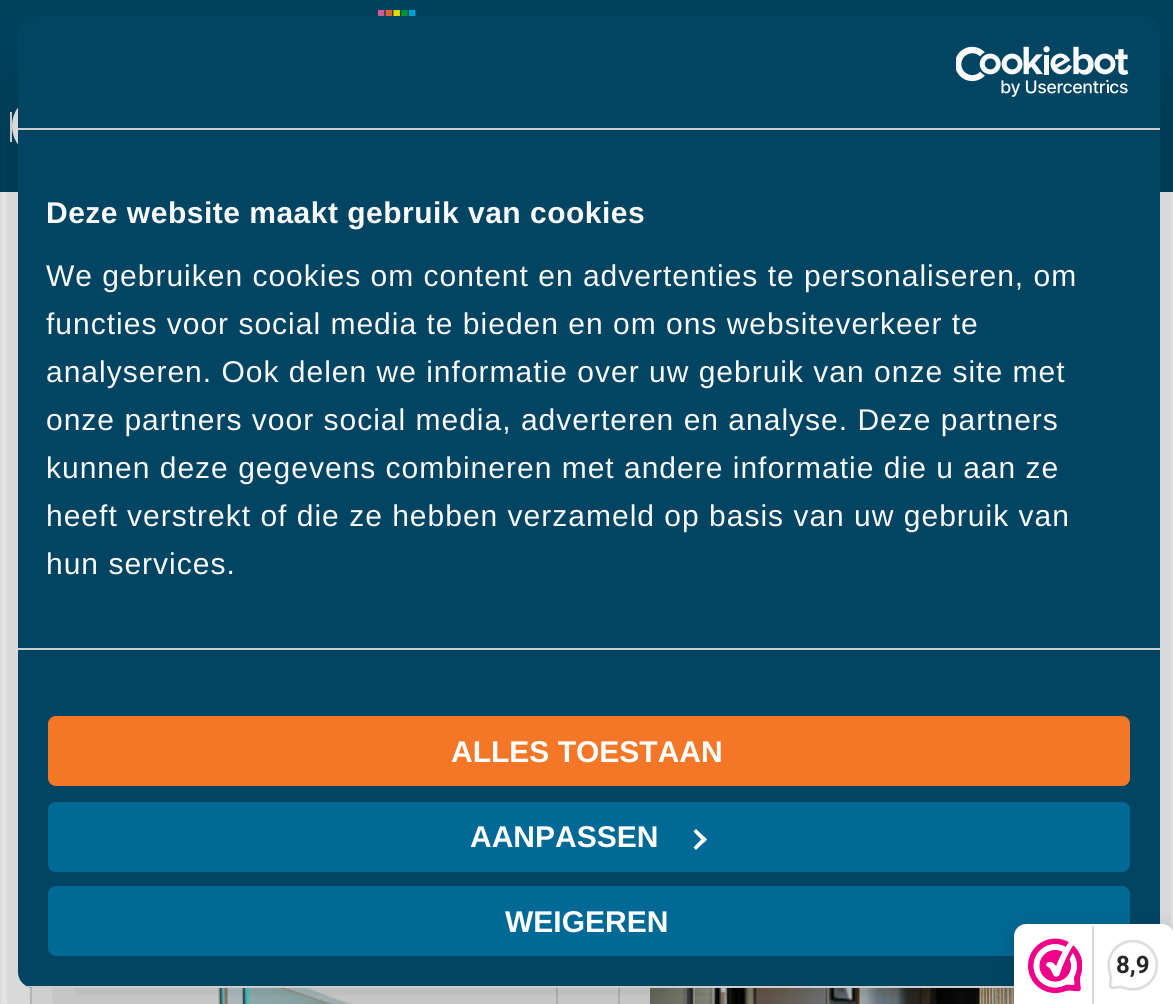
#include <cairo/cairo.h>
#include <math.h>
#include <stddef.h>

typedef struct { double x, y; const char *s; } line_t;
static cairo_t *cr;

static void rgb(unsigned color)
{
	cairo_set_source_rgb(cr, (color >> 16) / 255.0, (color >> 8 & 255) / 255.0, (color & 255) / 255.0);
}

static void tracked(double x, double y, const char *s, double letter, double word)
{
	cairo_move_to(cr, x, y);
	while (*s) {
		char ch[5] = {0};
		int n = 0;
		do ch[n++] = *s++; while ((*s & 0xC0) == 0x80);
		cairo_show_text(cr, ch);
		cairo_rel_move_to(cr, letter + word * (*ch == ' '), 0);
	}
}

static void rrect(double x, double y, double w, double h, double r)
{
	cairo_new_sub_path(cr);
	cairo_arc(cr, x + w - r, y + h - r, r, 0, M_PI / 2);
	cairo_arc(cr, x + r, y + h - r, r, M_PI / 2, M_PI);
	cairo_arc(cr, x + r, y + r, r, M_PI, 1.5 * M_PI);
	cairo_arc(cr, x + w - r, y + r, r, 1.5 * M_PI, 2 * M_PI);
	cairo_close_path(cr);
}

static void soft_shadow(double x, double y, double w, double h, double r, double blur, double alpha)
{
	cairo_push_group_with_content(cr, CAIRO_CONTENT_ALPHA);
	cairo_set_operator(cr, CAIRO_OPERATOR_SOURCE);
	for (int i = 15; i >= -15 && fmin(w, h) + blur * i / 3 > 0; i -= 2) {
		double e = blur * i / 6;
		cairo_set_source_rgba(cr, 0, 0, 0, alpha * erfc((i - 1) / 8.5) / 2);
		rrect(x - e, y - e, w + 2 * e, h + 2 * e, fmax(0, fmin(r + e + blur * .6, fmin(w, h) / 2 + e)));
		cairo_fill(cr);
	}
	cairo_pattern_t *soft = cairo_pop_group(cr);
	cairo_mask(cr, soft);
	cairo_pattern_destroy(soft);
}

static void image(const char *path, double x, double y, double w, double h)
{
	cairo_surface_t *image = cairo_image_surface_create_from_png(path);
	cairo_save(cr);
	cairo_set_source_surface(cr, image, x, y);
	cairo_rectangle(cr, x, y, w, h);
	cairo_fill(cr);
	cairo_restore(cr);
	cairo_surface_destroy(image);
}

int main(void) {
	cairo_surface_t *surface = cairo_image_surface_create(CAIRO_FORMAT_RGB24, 1173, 1004);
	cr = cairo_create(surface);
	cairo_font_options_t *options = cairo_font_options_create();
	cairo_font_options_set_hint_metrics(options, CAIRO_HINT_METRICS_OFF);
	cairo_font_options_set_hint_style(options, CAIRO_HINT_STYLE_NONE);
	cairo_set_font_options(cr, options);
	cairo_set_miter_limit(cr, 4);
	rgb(0xffffff);
	cairo_paint(cr);
	rgb(0x004562);
	cairo_rectangle(cr, 0, 0, 1173, 192);
	cairo_fill(cr);
	image("img/1.png", 378, 10, 38, 6);
	rgb(0xffffff);
	cairo_new_path(cr);
	cairo_move_to(cr, 40, 96);
	cairo_line_to(cr, 1048, 96);
	cairo_curve_to(cr, 1049, 96, 1050, 97, 1050, 98);
	cairo_line_to(cr, 1050, 154);
	cairo_curve_to(cr, 1050, 155, 1049, 156, 1048, 156);
	cairo_line_to(cr, 40, 156);
	cairo_curve_to(cr, 25, 156, 12, 143, 12, 126);
	cairo_curve_to(cr, 12, 109, 25, 96, 40, 96);
	cairo_close_path(cr);
	cairo_fill(cr);
	rgb(0xeeeeee);
	cairo_rectangle(cr, 10, 112, 2, 30);
	cairo_fill(cr);
	rgb(0x000000);
	soft_shadow(-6, 6, 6, 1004, 0, 2, 0.1);
	cairo_rectangle(cr, 31, 875, 526, 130);
	rgb(0xdddddd);
	cairo_stroke(cr);
	image("img/2.png", 218, 988, 133, 16);
	cairo_rectangle(cr, 619, 875, 524, 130);
	cairo_stroke(cr);
	image("img/3.png", 650, 988, 364, 16);
	rgb(0x000000);
	soft_shadow(18, 80, 1142, 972, 16, 68, 0.3);
	rgb(0x014562);
	rrect(18, 16, 1142, 972, 16);
	cairo_fill(cr);
	rgb(0xcdcdcd);
	cairo_rectangle(cr, 18, 128, 1142, 2);
	cairo_fill(cr);
	image("img/4.png", 956, 46, 173, 51);
	cairo_rectangle(cr, 18, 648, 1142, 2);
	cairo_fill(cr);
	cairo_save(cr);
	rrect(18, 16, 1142, 972, 16);
	cairo_clip(cr);
	cairo_rectangle(cr, 18, 986, 996, 2);
	cairo_fill(cr);
	cairo_restore(cr);
	rgb(0xf47727);
	rrect(48, 716, 1082, 70, 8);
	cairo_fill(cr);
	rgb(0x016995);
	rrect(48, 802, 1082, 70, 8);
	cairo_fill(cr);
	rgb(0xffffff);
	cairo_new_path(cr);
	cairo_move_to(cr, 696, 829);
	cairo_line_to(cr, 707, 839.5);
	cairo_line_to(cr, 704, 842.5);
	cairo_line_to(cr, 693.5, 831.5);
	cairo_close_path(cr);
	cairo_fill(cr);
	cairo_new_path(cr);
	cairo_move_to(cr, 704, 836.5);
	cairo_line_to(cr, 707, 839.5);
	cairo_line_to(cr, 696, 850);
	cairo_line_to(cr, 693.5, 847.5);
	cairo_close_path(cr);
	cairo_fill(cr);
	rgb(0x016995);
	rrect(48, 886, 1082, 70, 8);
	cairo_fill(cr);
	rgb(0x000000);
	soft_shadow(1014, 928, 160, 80, 12, 10, 0.15);
	rgb(0xffffff);
	cairo_new_path(cr);
	cairo_move_to(cr, 1026, 924);
	cairo_line_to(cr, 1162, 924);
	cairo_curve_to(cr, 1168.5, 924, 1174, 929.5, 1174, 936);
	cairo_line_to(cr, 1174, 1004);
	cairo_line_to(cr, 1014, 1004);
	cairo_line_to(cr, 1014, 936);
	cairo_curve_to(cr, 1014, 929.5, 1019.5, 924, 1026, 924);
	cairo_close_path(cr);
	cairo_fill(cr);
	image("img/5.png", 1028, 938, 54, 56);
	rgb(0xd9d9d9);
	cairo_rectangle(cr, 1092, 926, 2, 78);
	cairo_fill(cr);
	image("img/6.png", 1107, 939, 52, 52);
	cairo_select_font_face(cr, "Liberation Sans", CAIRO_FONT_SLANT_NORMAL, CAIRO_FONT_WEIGHT_BOLD);
	cairo_set_font_size(cr, 30);
	rgb(0xf9f9f9);
	tracked(46, 223, "Deze website maakt gebruik van cookies", 0.5, 0);
	cairo_select_font_face(cr, "Liberation Sans", CAIRO_FONT_SLANT_NORMAL, CAIRO_FONT_WEIGHT_NORMAL);
	{
		static const line_t items[] = {
			{46, 286, "We gebruiken cookies om content en advertenties te personaliseren, om"},
			{46, 334, "functies voor social media te bieden en om ons websiteverkeer te"},
			{46, 382, "analyseren. Ook delen we informatie over uw gebruik van onze site met"},
			{46, 430, "onze partners voor social media, adverteren en analyse. Deze partners"},
			{46, 478, "kunnen deze gegevens combineren met andere informatie die u aan ze"},
			{46, 526, "heeft verstrekt of die ze hebben verzameld op basis van uw gebruik van"},
			{46, 574, "hun services."},
		};
		for (size_t i = 0; i < sizeof items / sizeof *items; i++) {
			tracked(items[i].x, items[i].y, items[i].s, 1, 0);
		}
	}
	cairo_select_font_face(cr, "Liberation Sans", CAIRO_FONT_SLANT_NORMAL, CAIRO_FONT_WEIGHT_BOLD);
	rgb(0xffffff);
	{
		static const line_t items[] = {
			{451, 762, "ALLES TOESTAAN"},
			{470, 847, "AANPASSEN"},
			{505, 932, "WEIGEREN"},
		};
		for (size_t i = 0; i < sizeof items / sizeof *items; i++) {
			cairo_move_to(cr, items[i].x, items[i].y);
			cairo_show_text(cr, items[i].s);
		}
	}
	cairo_select_font_face(cr, "Roboto", CAIRO_FONT_SLANT_NORMAL, CAIRO_FONT_WEIGHT_BOLD);
	cairo_set_font_size(cr, 24);
	rgb(0x272626);
	cairo_move_to(cr, 1116, 973);
	cairo_show_text(cr, "8,9");
	cairo_surface_write_to_png(surface, "page.png");
	cairo_font_options_destroy(options);
	cairo_destroy(cr);
	cairo_surface_destroy(surface);
	return 0;
}
